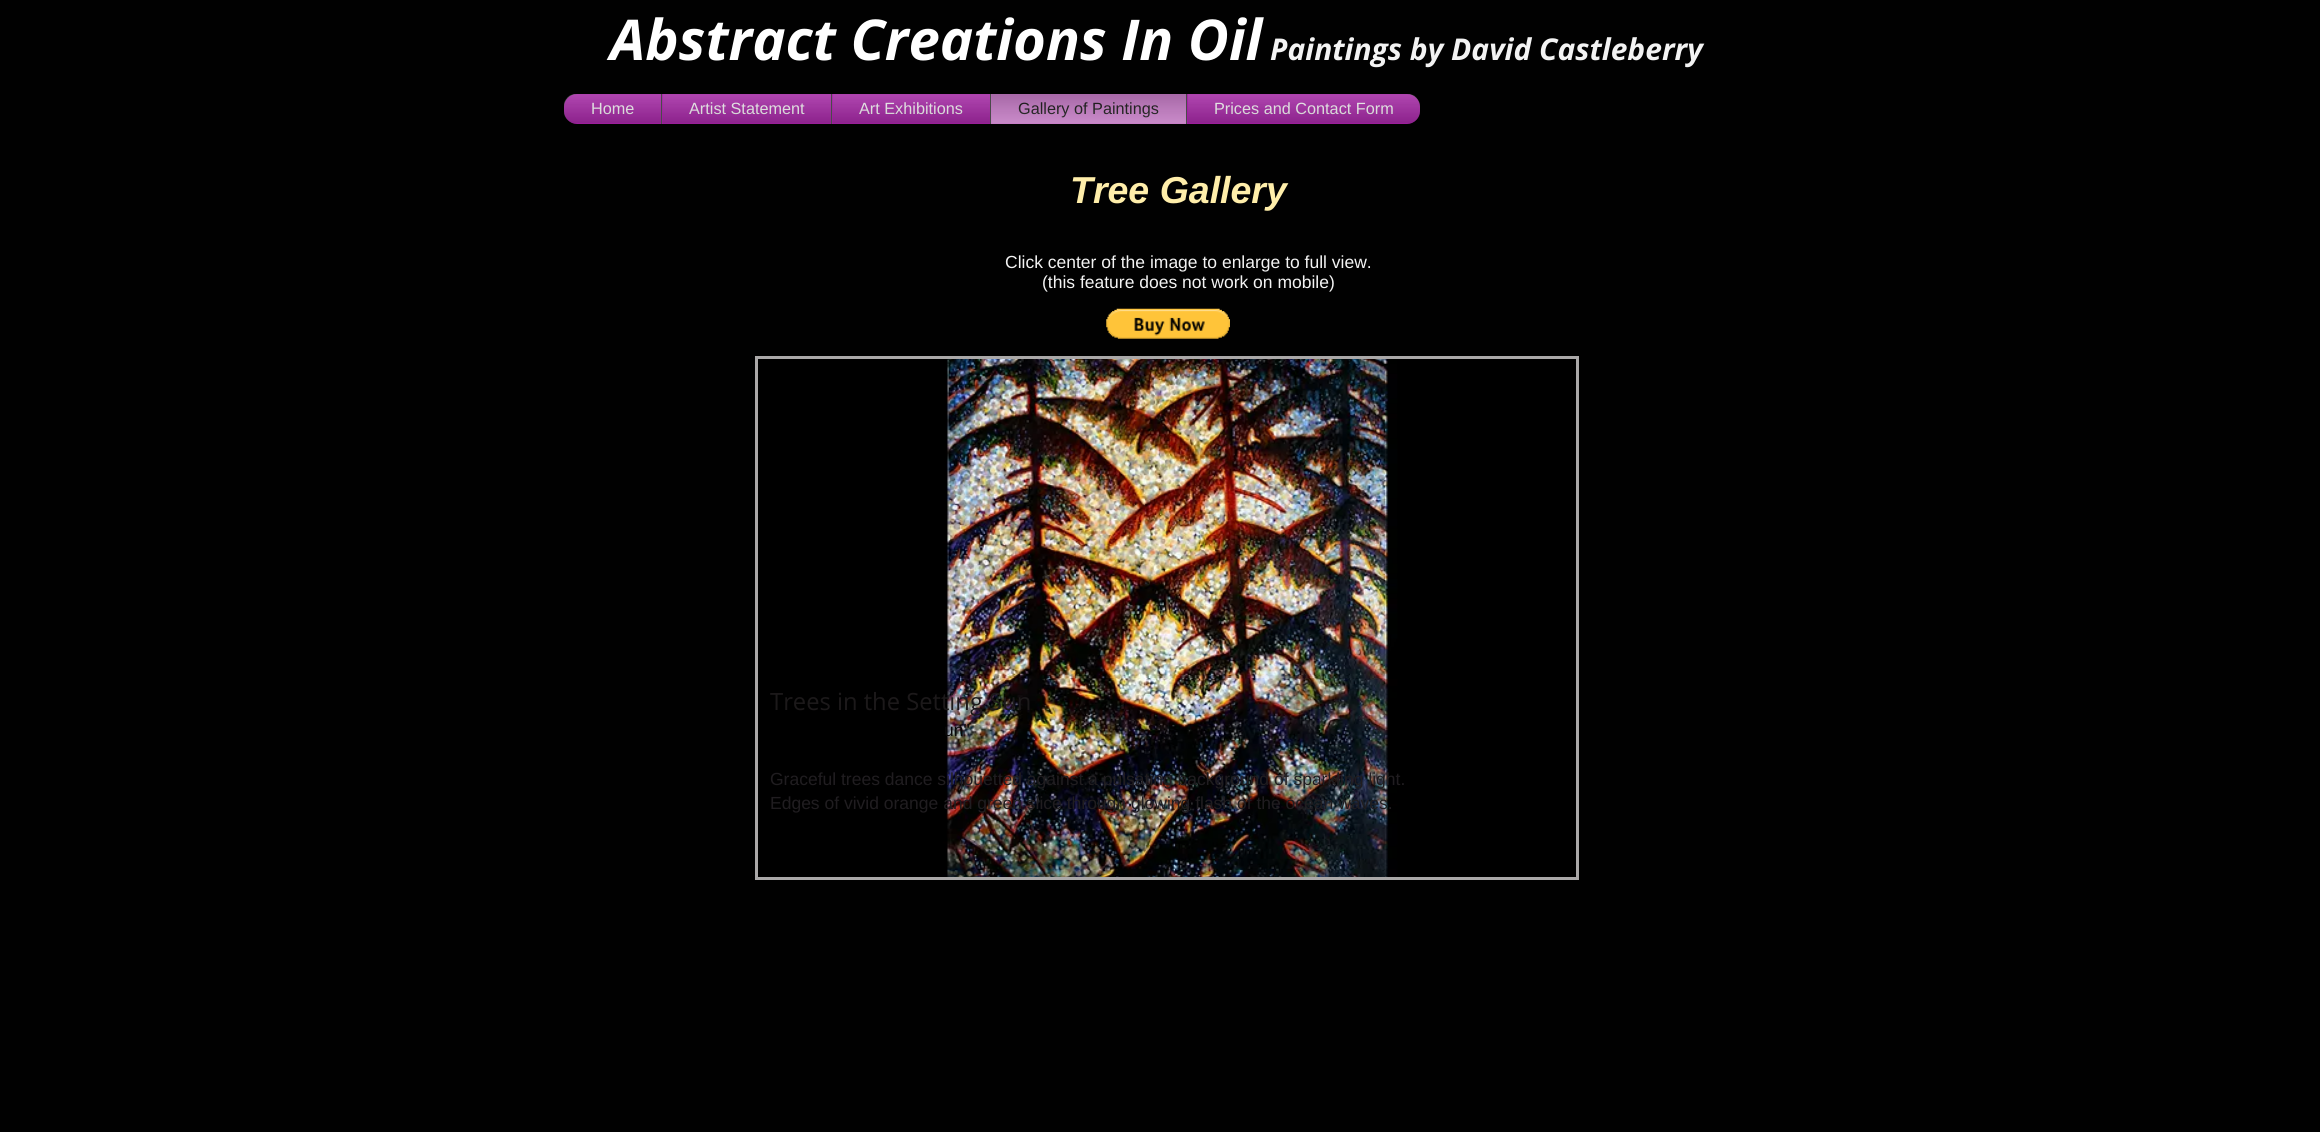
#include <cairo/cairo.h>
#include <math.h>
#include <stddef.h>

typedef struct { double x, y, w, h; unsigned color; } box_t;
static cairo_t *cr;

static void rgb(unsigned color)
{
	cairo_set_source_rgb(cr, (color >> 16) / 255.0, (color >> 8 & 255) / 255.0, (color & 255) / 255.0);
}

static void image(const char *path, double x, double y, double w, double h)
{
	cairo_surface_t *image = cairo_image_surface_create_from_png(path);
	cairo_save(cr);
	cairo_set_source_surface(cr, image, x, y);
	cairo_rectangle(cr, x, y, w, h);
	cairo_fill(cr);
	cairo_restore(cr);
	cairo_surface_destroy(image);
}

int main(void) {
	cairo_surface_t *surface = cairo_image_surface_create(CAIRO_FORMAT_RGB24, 2320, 1132);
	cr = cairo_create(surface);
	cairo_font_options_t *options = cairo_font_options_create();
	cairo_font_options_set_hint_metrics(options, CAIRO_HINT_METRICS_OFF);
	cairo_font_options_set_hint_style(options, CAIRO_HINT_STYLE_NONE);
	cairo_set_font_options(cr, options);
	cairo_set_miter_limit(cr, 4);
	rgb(0x010101);
	cairo_paint(cr);
	image("img/1.png", 564, 94, 856, 30);
	image("img/2.png", 564, 94, 856, 30);
	rgb(0xa31aa3);
	cairo_new_path(cr);
	cairo_move_to(cr, 577, 94);
	cairo_line_to(cr, 661, 94);
	cairo_line_to(cr, 661, 124);
	cairo_line_to(cr, 577, 124);
	cairo_curve_to(cr, 570, 124, 564, 118, 564, 111);
	cairo_line_to(cr, 564, 107);
	cairo_curve_to(cr, 564, 100, 570, 94, 577, 94);
	cairo_close_path(cr);
	cairo_fill(cr);
	{
		static const box_t items[] = {
			{662, 94, 169, 30, 0xa31aa3},
			{661, 94, 1, 30, 0x4a4a4a},
			{832, 94, 158, 30, 0xa31aa3},
			{831, 94, 1, 30, 0x4a4a4a},
			{991, 94, 195, 30, 0xc170c1},
			{990, 94, 1, 30, 0x4a4a4a},
		};
		for (size_t i = 0; i < sizeof items / sizeof *items; i++) {
			rgb(items[i].color);
			cairo_rectangle(cr, items[i].x, items[i].y, items[i].w, items[i].h);
			cairo_fill(cr);
		}
	}
	rgb(0xa31aa3);
	cairo_new_path(cr);
	cairo_move_to(cr, 1186, 94);
	cairo_line_to(cr, 1407, 94);
	cairo_curve_to(cr, 1414, 94, 1420, 100, 1420, 107);
	cairo_line_to(cr, 1420, 111);
	cairo_curve_to(cr, 1420, 118, 1414, 124, 1407, 124);
	cairo_line_to(cr, 1186, 124);
	cairo_close_path(cr);
	cairo_fill(cr);
	rgb(0x4a4a4a);
	cairo_rectangle(cr, 1186, 94, 1, 30);
	cairo_fill(cr);
	image("img/13.png", 1106, 308, 124, 31);
	image("img/14.png", 758, 359, 818, 518);
	cairo_rectangle(cr, 756.5, 357.5, 821, 521);
	rgb(0xaaa8a8);
	cairo_set_line_width(cr, 3);
	cairo_stroke(cr);
	cairo_select_font_face(cr, "Open Sans", CAIRO_FONT_SLANT_ITALIC, CAIRO_FONT_WEIGHT_BOLD);
	cairo_set_font_size(cr, 56.25);
	rgb(0xffffff);
	cairo_move_to(cr, 610, 60);
	cairo_show_text(cr, "Abstract Creations In Oil");
	cairo_set_font_size(cr, 30);
	rgb(0xf3f3f3);
	cairo_move_to(cr, 1270, 60);
	cairo_show_text(cr, "Paintings by David Castleberry");
	cairo_select_font_face(cr, "Liberation Sans", CAIRO_FONT_SLANT_NORMAL, CAIRO_FONT_WEIGHT_NORMAL);
	cairo_set_font_size(cr, 16.25);
	cairo_move_to(cr, 591, 114);
	cairo_show_text(cr, "Home");
	image("img/3.png", 564, 94, 97, 30);
	image("img/4.png", 564, 94, 97, 30);
	cairo_move_to(cr, 689, 114);
	cairo_show_text(cr, "Artist Statement");
	image("img/5.png", 662, 94, 169, 30);
	image("img/6.png", 662, 94, 169, 30);
	cairo_move_to(cr, 859, 114);
	cairo_show_text(cr, "Art Exhibitions");
	image("img/7.png", 832, 94, 158, 30);
	image("img/8.png", 832, 94, 158, 30);
	rgb(0x010000);
	cairo_move_to(cr, 1018, 114);
	cairo_show_text(cr, "Gallery of Paintings");
	image("img/9.png", 991, 94, 195, 29);
	image("img/10.png", 991, 94, 195, 30);
	rgb(0xf3f3f3);
	cairo_move_to(cr, 1214, 114);
	cairo_show_text(cr, "Prices and Contact Form");
	image("img/11.png", 1187, 94, 233, 30);
	image("img/12.png", 1187, 94, 233, 30);
	cairo_select_font_face(cr, "Liberation Sans", CAIRO_FONT_SLANT_ITALIC, CAIRO_FONT_WEIGHT_BOLD);
	cairo_set_font_size(cr, 37.5);
	rgb(0xffeeaa);
	cairo_move_to(cr, 1070, 203);
	cairo_show_text(cr, "Tree Gallery");
	cairo_select_font_face(cr, "Liberation Sans", CAIRO_FONT_SLANT_NORMAL, CAIRO_FONT_WEIGHT_NORMAL);
	cairo_set_font_size(cr, 17.5);
	rgb(0xf3f3f3);
	cairo_move_to(cr, 1005, 268);
	cairo_show_text(cr, "Click center of the image to enlarge to full view.");
	cairo_move_to(cr, 1042, 288);
	cairo_show_text(cr, "(this feature does not work on mobile)");
	cairo_select_font_face(cr, "Open Sans", CAIRO_FONT_SLANT_NORMAL, CAIRO_FONT_WEIGHT_NORMAL);
	cairo_set_font_size(cr, 23.75);
	rgb(0x1c191a);
	cairo_move_to(cr, 770, 710);
	cairo_show_text(cr, "Trees in the Setting Sun");
	cairo_select_font_face(cr, "Liberation Sans", CAIRO_FONT_SLANT_NORMAL, CAIRO_FONT_WEIGHT_NORMAL);
	cairo_set_font_size(cr, 17.5);
	rgb(0x0a0909);
	cairo_move_to(cr, 944, 736);
	cairo_show_text(cr, "un\"");
	rgb(0x201d20);
	cairo_move_to(cr, 770, 785);
	cairo_show_text(cr, "Graceful trees dance silhouetted against a pulsating background of sparkling light.");
	cairo_move_to(cr, 770, 809);
	cairo_show_text(cr, "Edges of vivid orange and green slice through glowing flash of the ocean waves.");
	cairo_surface_write_to_png(surface, "page.png");
	cairo_font_options_destroy(options);
	cairo_destroy(cr);
	cairo_surface_destroy(surface);
	return 0;
}
